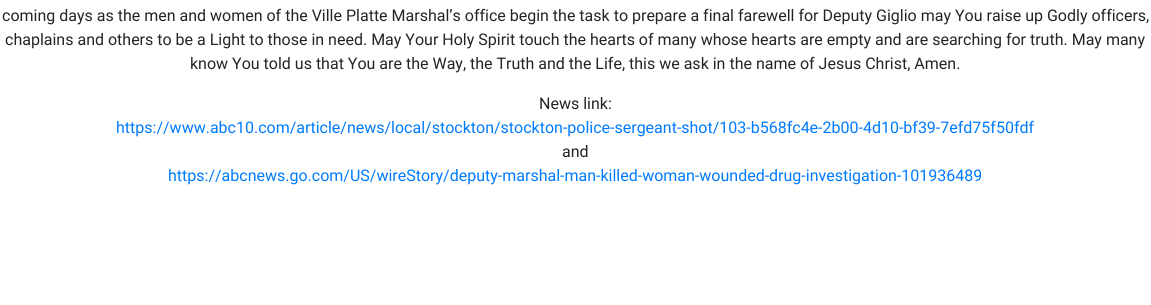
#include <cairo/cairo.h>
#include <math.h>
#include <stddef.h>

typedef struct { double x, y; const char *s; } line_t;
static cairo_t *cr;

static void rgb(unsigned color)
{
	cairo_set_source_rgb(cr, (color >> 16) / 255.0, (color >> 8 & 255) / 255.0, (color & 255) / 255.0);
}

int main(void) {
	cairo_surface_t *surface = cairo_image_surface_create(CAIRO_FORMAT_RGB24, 1151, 305);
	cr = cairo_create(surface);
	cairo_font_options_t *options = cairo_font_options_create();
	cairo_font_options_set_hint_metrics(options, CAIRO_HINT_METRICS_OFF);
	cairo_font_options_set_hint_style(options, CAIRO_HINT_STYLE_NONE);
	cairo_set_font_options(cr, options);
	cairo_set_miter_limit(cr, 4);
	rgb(0xffffff);
	cairo_paint(cr);
	cairo_select_font_face(cr, "Roboto", CAIRO_FONT_SLANT_NORMAL, CAIRO_FONT_WEIGHT_NORMAL);
	cairo_set_font_size(cr, 16);
	rgb(0x212529);
	{
		static const line_t items[] = {
			{2, 21, "coming days as the men and women of the Ville Platte Marshal’s office begin the task to prepare a final farewell for Deputy Giglio may You raise up Godly officers,"},
			{5, 45, "chaplains and others to be a Light to those in need. May Your Holy Spirit touch the hearts of many whose hearts are empty and are searching for truth. May many"},
			{190, 69, "know You told us that You are the Way, the Truth and the Life, this we ask in the name of Jesus Christ, Amen."},
			{539, 109, "News link:"},
		};
		for (size_t i = 0; i < sizeof items / sizeof *items; i++) {
			cairo_move_to(cr, items[i].x, items[i].y);
			cairo_show_text(cr, items[i].s);
		}
	}
	rgb(0x007bff);
	cairo_move_to(cr, 116, 133);
	cairo_show_text(cr, "https://www.abc10.com/article/news/local/stockton/stockton-police-sergeant-shot/103-b568fc4e-2b00-4d10-bf39-7efd75f50fdf");
	rgb(0x212529);
	cairo_move_to(cr, 562, 157);
	cairo_show_text(cr, "and");
	rgb(0x007bff);
	cairo_move_to(cr, 168, 181);
	cairo_show_text(cr, "https://abcnews.go.com/US/wireStory/deputy-marshal-man-killed-woman-wounded-drug-investigation-101936489");
	cairo_surface_write_to_png(surface, "page.png");
	cairo_font_options_destroy(options);
	cairo_destroy(cr);
	cairo_surface_destroy(surface);
	return 0;
}
